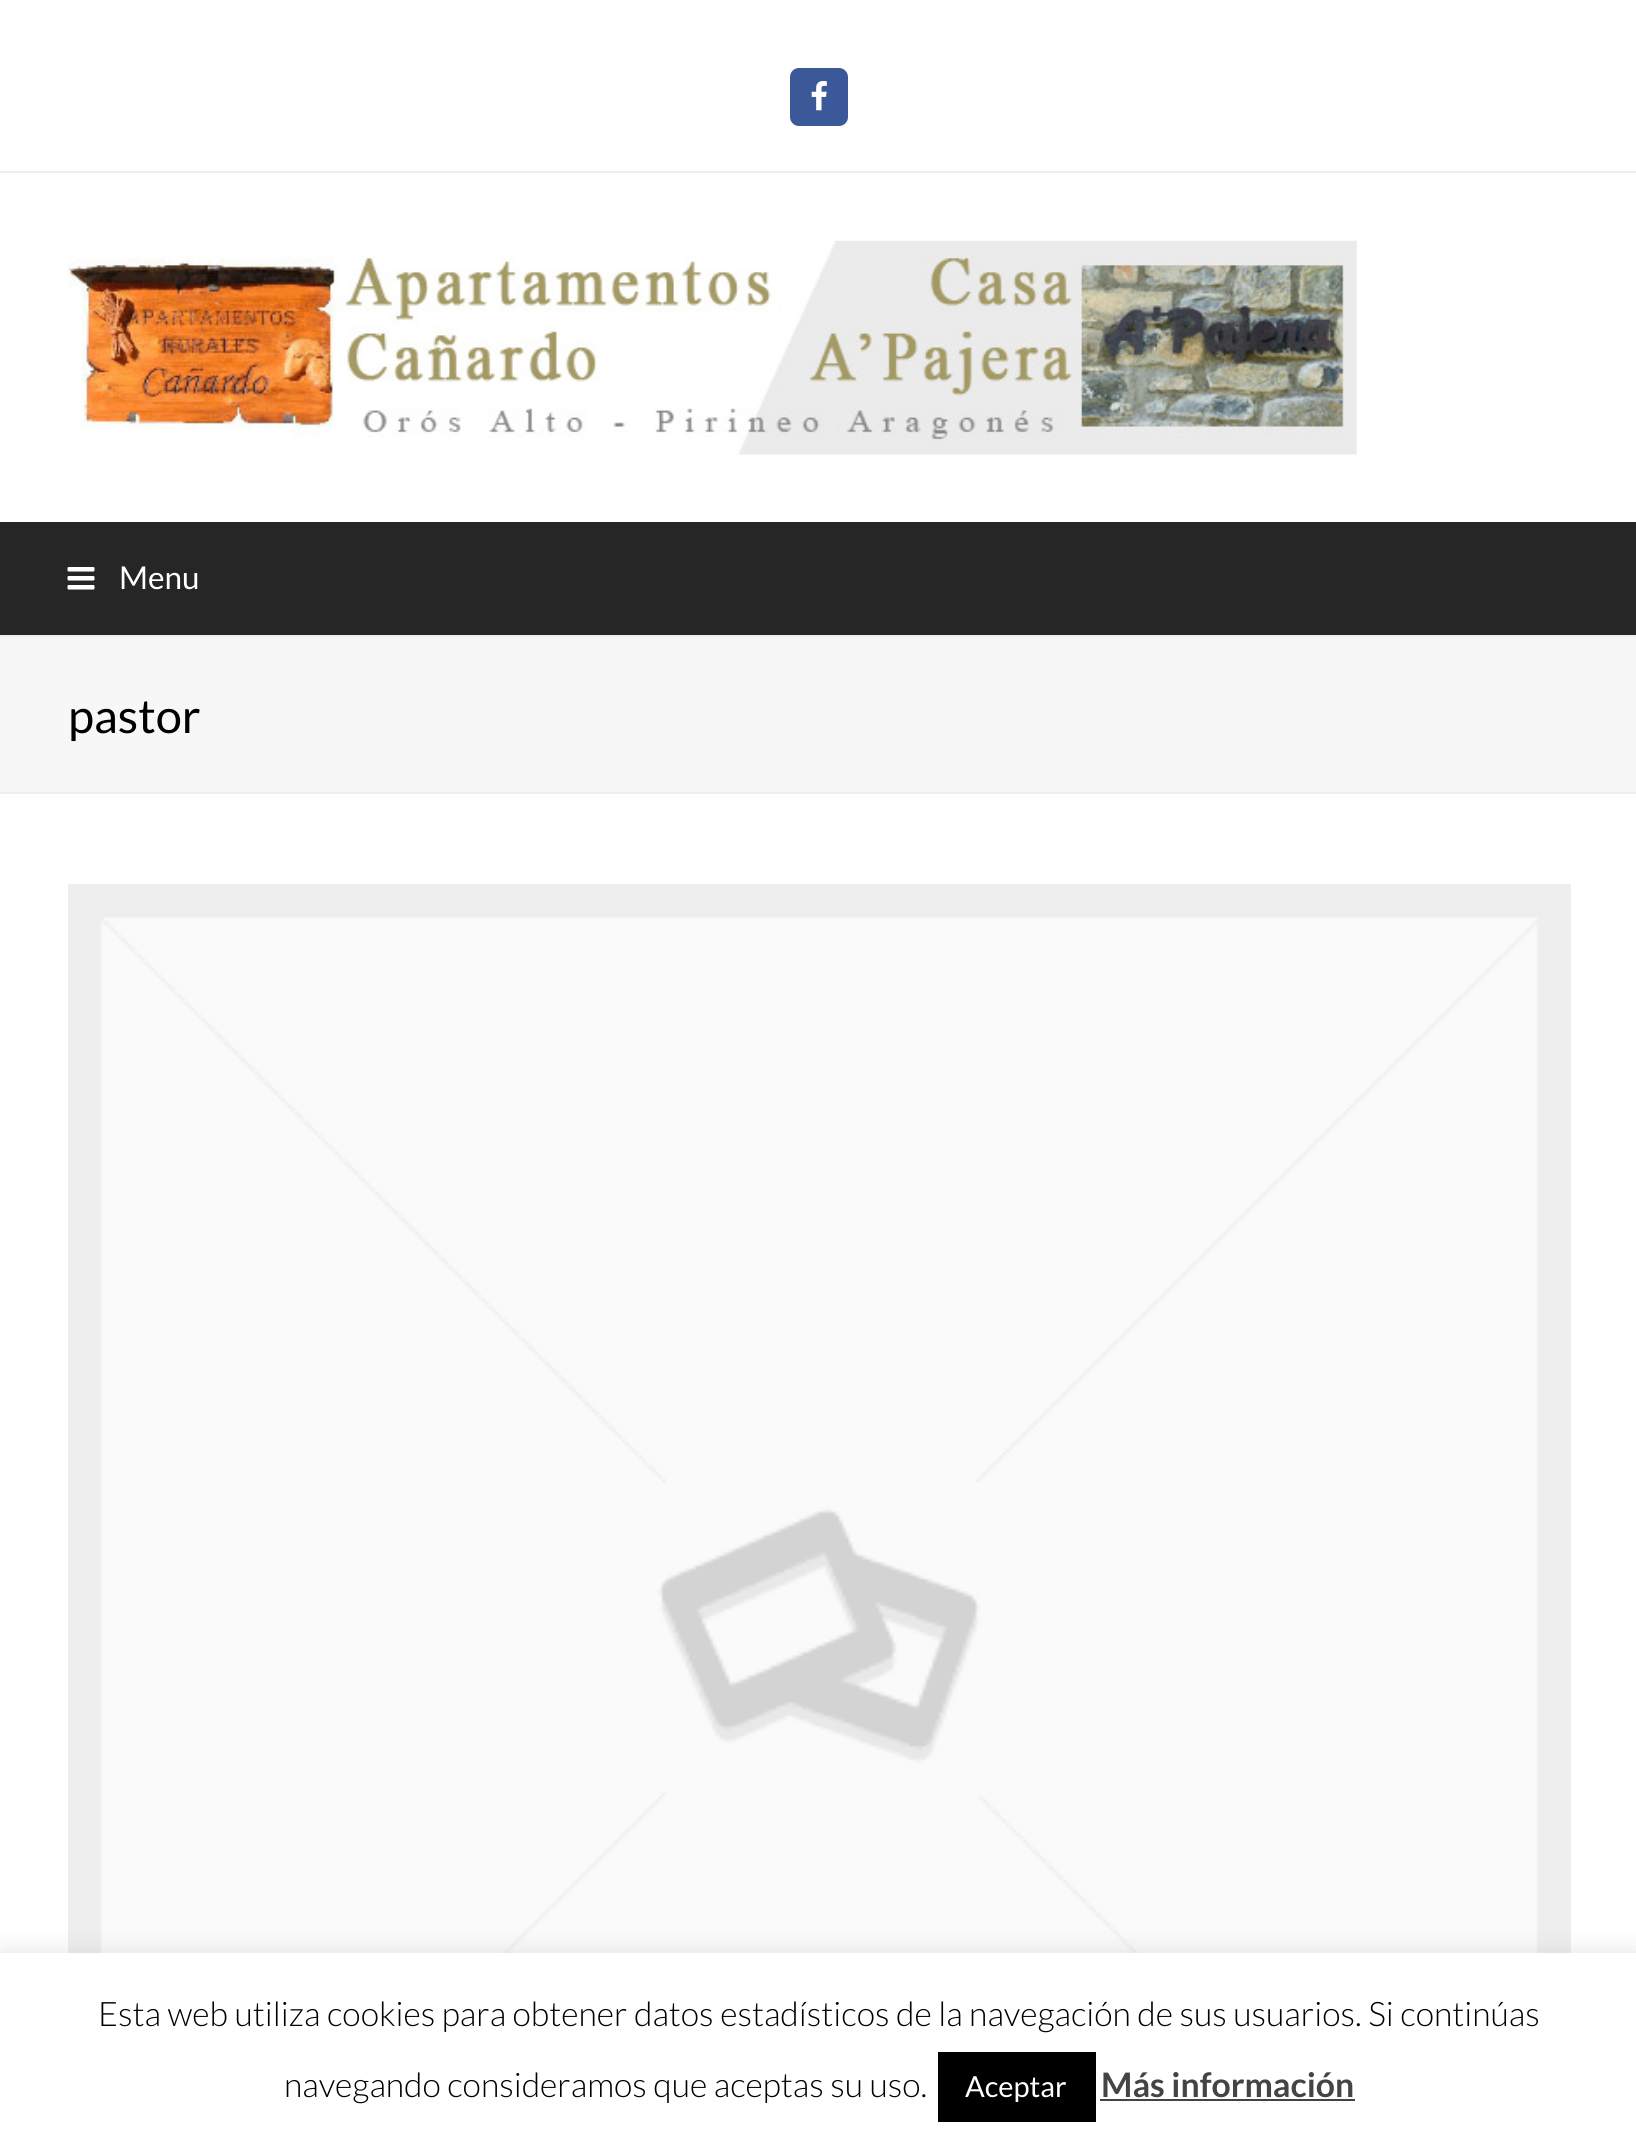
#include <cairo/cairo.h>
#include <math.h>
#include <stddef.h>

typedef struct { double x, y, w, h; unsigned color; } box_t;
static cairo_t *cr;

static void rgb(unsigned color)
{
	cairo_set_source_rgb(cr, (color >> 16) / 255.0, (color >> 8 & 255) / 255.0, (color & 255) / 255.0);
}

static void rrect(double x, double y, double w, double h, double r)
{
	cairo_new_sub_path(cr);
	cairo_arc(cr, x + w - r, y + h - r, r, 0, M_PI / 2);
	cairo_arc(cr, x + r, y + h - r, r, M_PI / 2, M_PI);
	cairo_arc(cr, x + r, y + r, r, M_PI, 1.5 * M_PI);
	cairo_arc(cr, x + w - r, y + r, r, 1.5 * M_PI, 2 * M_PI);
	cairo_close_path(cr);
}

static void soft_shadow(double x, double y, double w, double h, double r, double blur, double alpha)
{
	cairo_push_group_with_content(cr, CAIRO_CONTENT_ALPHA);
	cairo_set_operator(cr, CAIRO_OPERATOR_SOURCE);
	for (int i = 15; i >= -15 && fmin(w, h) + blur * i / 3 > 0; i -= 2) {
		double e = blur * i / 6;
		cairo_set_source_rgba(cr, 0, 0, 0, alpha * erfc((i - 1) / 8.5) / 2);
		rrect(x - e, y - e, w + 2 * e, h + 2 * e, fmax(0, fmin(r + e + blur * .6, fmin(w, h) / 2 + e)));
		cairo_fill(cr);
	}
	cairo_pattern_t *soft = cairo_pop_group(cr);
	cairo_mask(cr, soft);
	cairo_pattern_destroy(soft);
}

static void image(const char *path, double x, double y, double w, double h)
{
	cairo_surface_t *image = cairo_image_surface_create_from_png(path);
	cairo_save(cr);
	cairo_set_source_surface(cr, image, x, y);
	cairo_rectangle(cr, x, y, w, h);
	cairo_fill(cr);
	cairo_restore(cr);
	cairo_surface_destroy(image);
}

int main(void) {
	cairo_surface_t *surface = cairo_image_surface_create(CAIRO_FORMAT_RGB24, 1636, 2147);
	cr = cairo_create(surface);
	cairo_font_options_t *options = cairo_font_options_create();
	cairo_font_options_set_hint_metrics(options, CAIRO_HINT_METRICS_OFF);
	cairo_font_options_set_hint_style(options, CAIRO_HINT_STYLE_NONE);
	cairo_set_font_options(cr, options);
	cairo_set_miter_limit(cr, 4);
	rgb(0xffffff);
	cairo_paint(cr);
	rgb(0xeeeeee);
	cairo_rectangle(cr, 0, 171, 1636, 2);
	cairo_fill(cr);
	rgb(0x3b5998);
	rrect(790, 68, 58, 58, 9);
	cairo_fill(cr);
	image("img/1.png", 811, 81, 16, 30);
	image("img/2.png", 67, 240, 1290, 215);
	rgb(0x262626);
	cairo_rectangle(cr, 0, 522, 1636, 113);
	cairo_fill(cr);
	image("img/3.png", 67, 567, 28, 23);
	{
		static const box_t items[] = {
			{0, 637, 1636, 155, 0xf7f7f7},
			{0, 635, 1636, 2, 0xeeeeee},
			{0, 792, 1636, 2, 0xeeeeee},
		};
		for (size_t i = 0; i < sizeof items / sizeof *items; i++) {
			rgb(items[i].color);
			cairo_rectangle(cr, items[i].x, items[i].y, items[i].w, items[i].h);
			cairo_fill(cr);
		}
	}
	image("img/4.png", 68, 884, 1503, 1069);
	rgb(0xacabab);
	soft_shadow(0, 1951, 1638, 196, 0, 11, 0.3);
	{
		static const box_t items[] = {
			{0, 1953, 1636, 194, 0xffffff},
			{938, 2052, 158, 70, 0x000000},
			{1100, 2099, 255, 2, 0x444444},
		};
		for (size_t i = 0; i < sizeof items / sizeof *items; i++) {
			rgb(items[i].color);
			cairo_rectangle(cr, items[i].x, items[i].y, items[i].w, items[i].h);
			cairo_fill(cr);
		}
	}
	cairo_select_font_face(cr, "Lato", CAIRO_FONT_SLANT_NORMAL, CAIRO_FONT_WEIGHT_NORMAL);
	cairo_set_font_size(cr, 31.5);
	rgb(0xffffff);
	cairo_move_to(cr, 119, 589);
	cairo_show_text(cr, "Menu");
	cairo_set_font_size(cr, 47);
	rgb(0x000000);
	cairo_move_to(cr, 68, 733);
	cairo_show_text(cr, "pastor");
	cairo_select_font_face(cr, "Lato Light", CAIRO_FONT_SLANT_NORMAL, CAIRO_FONT_WEIGHT_NORMAL);
	cairo_set_font_size(cr, 33.75);
	cairo_move_to(cr, 98, 2026);
	cairo_show_text(cr, "Esta web utiliza cookies para obtener datos estadísticos de la navegación de sus usuarios. Si continúas");
	cairo_move_to(cr, 284, 2097);
	cairo_show_text(cr, "navegando consideramos que aceptas su uso.");
	cairo_select_font_face(cr, "Lato", CAIRO_FONT_SLANT_NORMAL, CAIRO_FONT_WEIGHT_NORMAL);
	cairo_set_font_size(cr, 29);
	rgb(0xffffff);
	cairo_move_to(cr, 965, 2097);
	cairo_show_text(cr, "Aceptar");
	cairo_select_font_face(cr, "Lato", CAIRO_FONT_SLANT_NORMAL, CAIRO_FONT_WEIGHT_BOLD);
	cairo_set_font_size(cr, 33.75);
	rgb(0x444444);
	cairo_move_to(cr, 1101, 2097);
	cairo_show_text(cr, "Más información");
	cairo_surface_write_to_png(surface, "page.png");
	cairo_font_options_destroy(options);
	cairo_destroy(cr);
	cairo_surface_destroy(surface);
	return 0;
}
